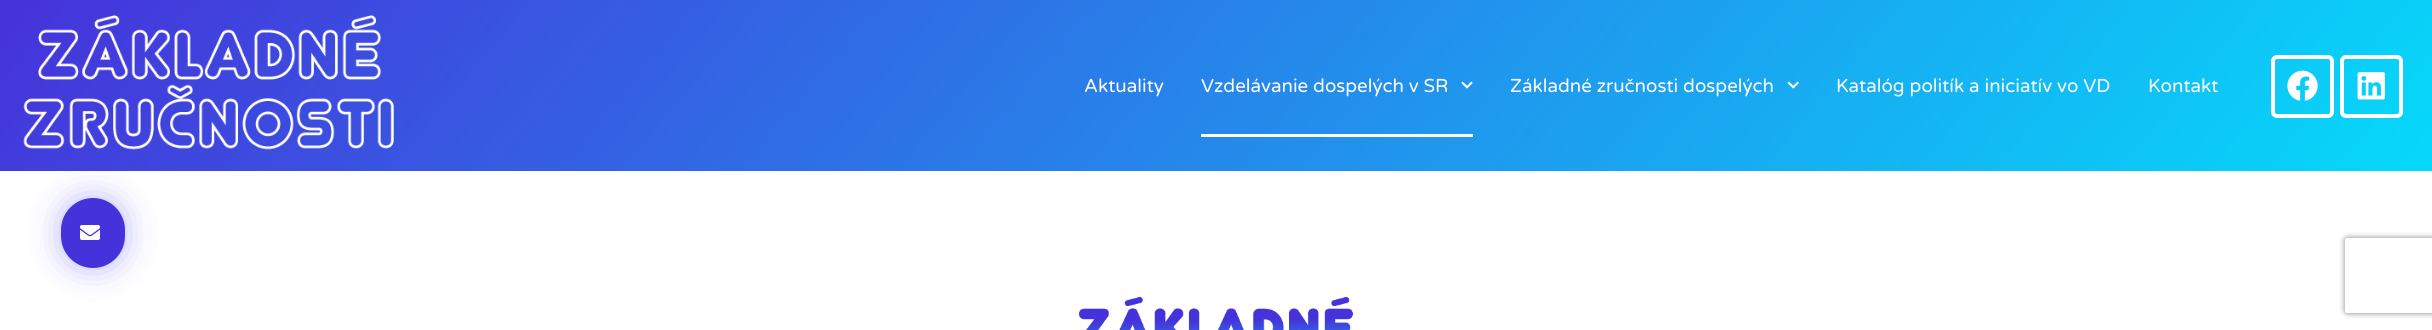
#include <cairo/cairo.h>
#include <math.h>
#include <stddef.h>

typedef struct { double x, y; const char *s; } line_t;
static cairo_t *cr;

static void rgb(unsigned color)
{
	cairo_set_source_rgb(cr, (color >> 16) / 255.0, (color >> 8 & 255) / 255.0, (color & 255) / 255.0);
}

static void rrect(double x, double y, double w, double h, double r)
{
	cairo_new_sub_path(cr);
	cairo_arc(cr, x + w - r, y + h - r, r, 0, M_PI / 2);
	cairo_arc(cr, x + r, y + h - r, r, M_PI / 2, M_PI);
	cairo_arc(cr, x + r, y + r, r, M_PI, 1.5 * M_PI);
	cairo_arc(cr, x + w - r, y + r, r, 1.5 * M_PI, 2 * M_PI);
	cairo_close_path(cr);
}

static void soft_shadow(double x, double y, double w, double h, double r, double blur, double alpha)
{
	cairo_push_group_with_content(cr, CAIRO_CONTENT_ALPHA);
	cairo_set_operator(cr, CAIRO_OPERATOR_SOURCE);
	for (int i = 15; i >= -15 && fmin(w, h) + blur * i / 3 > 0; i -= 2) {
		double e = blur * i / 6;
		cairo_set_source_rgba(cr, 0, 0, 0, alpha * erfc((i - 1) / 8.5) / 2);
		rrect(x - e, y - e, w + 2 * e, h + 2 * e, fmax(0, fmin(r + e + blur * .6, fmin(w, h) / 2 + e)));
		cairo_fill(cr);
	}
	cairo_pattern_t *soft = cairo_pop_group(cr);
	cairo_mask(cr, soft);
	cairo_pattern_destroy(soft);
}

static void image(const char *path, double x, double y, double w, double h)
{
	cairo_surface_t *image = cairo_image_surface_create_from_png(path);
	cairo_save(cr);
	cairo_set_source_surface(cr, image, x, y);
	cairo_rectangle(cr, x, y, w, h);
	cairo_fill(cr);
	cairo_restore(cr);
	cairo_surface_destroy(image);
}

int main(void) {
	cairo_surface_t *surface = cairo_image_surface_create(CAIRO_FORMAT_RGB24, 2432, 330);
	cr = cairo_create(surface);
	cairo_font_options_t *options = cairo_font_options_create();
	cairo_font_options_set_hint_metrics(options, CAIRO_HINT_METRICS_OFF);
	cairo_font_options_set_hint_style(options, CAIRO_HINT_STYLE_NONE);
	cairo_set_font_options(cr, options);
	cairo_set_miter_limit(cr, 4);
	cairo_pattern_t *gradient;
	rgb(0xffffff);
	cairo_paint(cr);
	gradient = cairo_pattern_create_linear(460, -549, 1972, 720);
	cairo_pattern_add_color_stop_rgba(gradient, 0, 0.275, 0.196, 0.855, 1);
	cairo_pattern_add_color_stop_rgba(gradient, 1, 0.024, 0.851, 0.98, 1);
	cairo_set_source(cr, gradient);
	cairo_pattern_destroy(gradient);
	cairo_rectangle(cr, 0, 0, 2432, 171);
	cairo_fill(cr);
	image("img/1.png", 23, 15, 371, 135);
	image("img/2.png", 1461, 81, 12, 8);
	rgb(0xfffefe);
	cairo_rectangle(cr, 1201, 134, 272, 3);
	cairo_fill(cr);
	image("img/3.png", 1787, 81, 12, 8);
	rrect(2273, 57, 59, 59, 4);
	rgb(0xffffff);
	cairo_set_line_width(cr, 4);
	cairo_stroke(cr);
	image("img/4.png", 2287, 70, 31, 31);
	rrect(2342, 57, 59, 59, 4);
	cairo_stroke(cr);
	image("img/5.png", 2357, 72, 28, 28);
	rgb(0x3538f0);
	soft_shadow(61, 198, 64, 70, 32, 15.5, 0.35);
	rgb(0x4632da);
	rrect(61, 198, 64, 70, 32);
	cairo_fill(cr);
	image("img/6.png", 80, 225, 20, 15);
	image("img/7.png", 1079, 296, 274, 34);
	cairo_save(cr);
	cairo_set_fill_rule(cr, CAIRO_FILL_RULE_EVEN_ODD);
	cairo_new_path(cr);
	cairo_move_to(cr, 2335, 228);
	cairo_line_to(cr, 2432, 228);
	cairo_line_to(cr, 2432, 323);
	cairo_line_to(cr, 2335, 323);
	cairo_close_path(cr);
	cairo_move_to(cr, 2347.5, 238);
	cairo_line_to(cr, 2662.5, 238);
	cairo_curve_to(cr, 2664, 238, 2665, 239, 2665, 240.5);
	cairo_line_to(cr, 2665, 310.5);
	cairo_curve_to(cr, 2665, 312, 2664, 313, 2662.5, 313);
	cairo_line_to(cr, 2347.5, 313);
	cairo_curve_to(cr, 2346, 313, 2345, 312, 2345, 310.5);
	cairo_line_to(cr, 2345, 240.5);
	cairo_curve_to(cr, 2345, 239, 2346, 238, 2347.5, 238);
	cairo_close_path(cr);
	cairo_clip(cr);
	rgb(0x808080);
	soft_shadow(2345, 238, 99, 75, 2.5, 3, 1);
	cairo_restore(cr);
	cairo_select_font_face(cr, "Varela Round", CAIRO_FONT_SLANT_NORMAL, CAIRO_FONT_WEIGHT_NORMAL);
	cairo_set_font_size(cr, 18.75);
	rgb(0xfffefe);
	{
		static const line_t items[] = {
			{1084, 92, "Aktuality"},
			{1201, 92, "Vzdelávanie dospelých v SR"},
			{1510, 92, "Základné zručnosti dospelých"},
			{1836, 92, "Katalóg politík a iniciatív vo VD"},
			{2148, 92, "Kontakt"},
		};
		for (size_t i = 0; i < sizeof items / sizeof *items; i++) {
			cairo_move_to(cr, items[i].x, items[i].y);
			cairo_show_text(cr, items[i].s);
		}
	}
	cairo_surface_write_to_png(surface, "page.png");
	cairo_font_options_destroy(options);
	cairo_destroy(cr);
	cairo_surface_destroy(surface);
	return 0;
}
